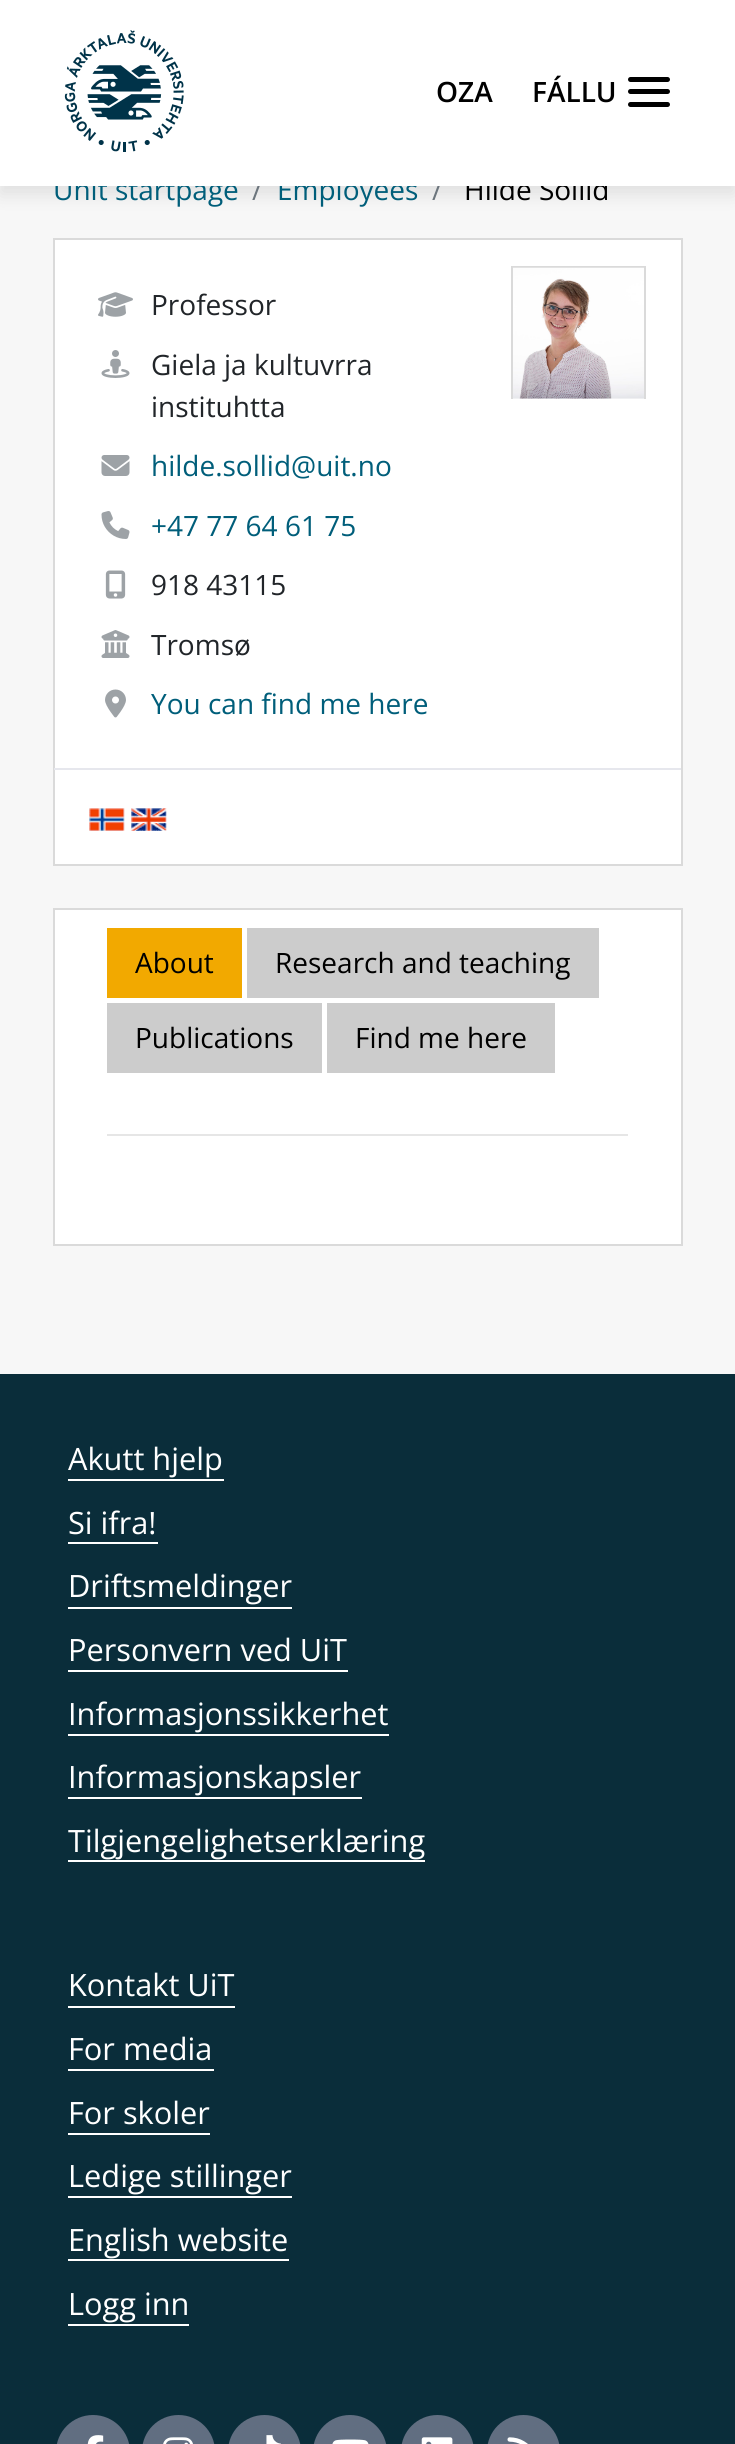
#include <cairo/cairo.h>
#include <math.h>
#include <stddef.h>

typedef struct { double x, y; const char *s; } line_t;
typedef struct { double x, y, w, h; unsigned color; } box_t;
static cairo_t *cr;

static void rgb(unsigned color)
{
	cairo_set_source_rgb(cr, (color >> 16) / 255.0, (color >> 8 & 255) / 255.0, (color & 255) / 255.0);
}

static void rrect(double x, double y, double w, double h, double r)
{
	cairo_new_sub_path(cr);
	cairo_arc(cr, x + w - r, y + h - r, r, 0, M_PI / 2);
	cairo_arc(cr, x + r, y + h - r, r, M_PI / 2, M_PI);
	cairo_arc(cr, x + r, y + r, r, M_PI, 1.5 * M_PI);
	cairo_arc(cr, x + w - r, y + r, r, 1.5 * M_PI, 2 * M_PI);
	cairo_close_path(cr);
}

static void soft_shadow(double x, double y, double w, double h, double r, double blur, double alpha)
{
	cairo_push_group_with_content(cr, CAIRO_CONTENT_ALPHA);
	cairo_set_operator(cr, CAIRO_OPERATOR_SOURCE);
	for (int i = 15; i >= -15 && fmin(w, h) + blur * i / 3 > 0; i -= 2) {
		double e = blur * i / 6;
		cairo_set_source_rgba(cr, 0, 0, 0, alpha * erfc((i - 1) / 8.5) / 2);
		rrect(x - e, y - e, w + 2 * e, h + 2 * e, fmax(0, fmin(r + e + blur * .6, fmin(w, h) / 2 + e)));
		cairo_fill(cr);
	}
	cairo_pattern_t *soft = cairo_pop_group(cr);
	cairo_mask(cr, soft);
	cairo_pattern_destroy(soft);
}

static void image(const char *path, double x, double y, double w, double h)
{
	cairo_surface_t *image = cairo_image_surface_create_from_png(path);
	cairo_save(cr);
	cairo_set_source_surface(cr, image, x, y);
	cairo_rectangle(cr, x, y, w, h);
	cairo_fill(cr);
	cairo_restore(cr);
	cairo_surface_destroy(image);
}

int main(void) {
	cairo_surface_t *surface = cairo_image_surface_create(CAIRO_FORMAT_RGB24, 735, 2444);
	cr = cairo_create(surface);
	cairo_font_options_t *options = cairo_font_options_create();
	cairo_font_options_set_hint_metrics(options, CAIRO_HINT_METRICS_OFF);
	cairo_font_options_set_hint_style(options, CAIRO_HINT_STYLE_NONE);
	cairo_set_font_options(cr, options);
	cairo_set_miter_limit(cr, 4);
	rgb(0xf7f7f7);
	cairo_paint(cr);
	rgb(0x000000);
	soft_shadow(0, 9, 735, 185, 0, 9, 0.1);
	rgb(0xffffff);
	cairo_rectangle(cr, 54, 239, 628, 626);
	cairo_fill_preserve(cr);
	rgb(0xdadada);
	cairo_stroke(cr);
	rgb(0xe6e7ed);
	cairo_rectangle(cr, 54, 768, 627, 2);
	cairo_fill(cr);
	image("img/2.png", 98, 292, 35, 25);
	{
		static const box_t items[] = {
			{511, 266, 135, 2, 0xdadada},
			{644, 266, 2, 133, 0xdadada},
			{511, 266, 2, 133, 0xdadada},
		};
		for (size_t i = 0; i < sizeof items / sizeof *items; i++) {
			rgb(items[i].color);
			cairo_rectangle(cr, items[i].x, items[i].y, items[i].w, items[i].h);
			cairo_fill(cr);
		}
	}
	image("img/3.png", 513, 267, 131, 132);
	image("img/4.png", 101, 350, 29, 28);
	image("img/5.png", 101, 455, 29, 21);
	image("img/6.png", 101, 511, 29, 28);
	image("img/7.png", 105, 570, 21, 29);
	image("img/8.png", 101, 630, 29, 28);
	image("img/9.png", 105, 689, 21, 29);
	image("img/10.png", 89, 808, 36, 23);
	image("img/11.png", 131, 808, 36, 23);
	rgb(0xffffff);
	cairo_rectangle(cr, 54, 909, 628, 336);
	cairo_fill_preserve(cr);
	rgb(0xdadada);
	cairo_stroke(cr);
	{
		static const box_t items[] = {
			{107, 928, 135, 70, 0xf2a900},
			{247, 928, 352, 70, 0xcccccc},
			{107, 1003, 215, 70, 0xcccccc},
			{327, 1003, 228, 70, 0xcccccc},
			{107, 1134, 521, 2, 0xe6e6e6},
			{0, 1374, 735, 1070, 0x0a2d3a},
			{68, 1479, 156, 2, 0xffffff},
			{68, 1542, 90, 2, 0xffffff},
			{68, 1607, 224, 2, 0xffffff},
			{68, 1670, 280, 2, 0xffffff},
			{68, 1734, 321, 2, 0xffffff},
			{68, 1797, 294, 2, 0xffffff},
			{68, 1860, 357, 2, 0xffffff},
			{68, 2006, 167, 2, 0xffffff},
			{68, 2069, 146, 2, 0xffffff},
			{68, 2133, 142, 2, 0xffffff},
			{68, 2196, 224, 2, 0xffffff},
			{68, 2259, 221, 2, 0xffffff},
			{68, 2324, 121, 2, 0xffffff},
		};
		for (size_t i = 0; i < sizeof items / sizeof *items; i++) {
			rgb(items[i].color);
			cairo_rectangle(cr, items[i].x, items[i].y, items[i].w, items[i].h);
			cairo_fill(cr);
		}
	}
	rgb(0x616e81);
	rrect(56, 2415, 74, 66, 37);
	cairo_fill(cr);
	image("img/12.png", 87, 2435, 17, 9);
	rrect(142, 2415, 73, 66, 36.5);
	cairo_fill(cr);
	image("img/13.png", 163, 2437, 30, 7);
	rrect(228, 2415, 73, 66, 36.5);
	cairo_fill(cr);
	image("img/14.png", 266, 2435, 15, 9);
	rrect(313, 2415, 74, 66, 37);
	cairo_fill(cr);
	image("img/15.png", 332, 2439, 37, 5);
	rrect(401, 2415, 73, 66, 36.5);
	cairo_fill(cr);
	image("img/16.png", 421, 2437, 32, 7);
	rrect(487, 2415, 73, 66, 36.5);
	cairo_fill(cr);
	image("img/17.png", 507, 2437, 21, 7);
	cairo_select_font_face(cr, "Open Sans", CAIRO_FONT_SLANT_NORMAL, CAIRO_FONT_WEIGHT_NORMAL);
	cairo_set_font_size(cr, 28);
	rgb(0x005e7a);
	cairo_move_to(cr, 53, 200);
	cairo_show_text(cr, "Unit startpage");
	rgb(0x6c757d);
	cairo_move_to(cr, 252, 200);
	cairo_show_text(cr, "/");
	rgb(0x005e7a);
	cairo_move_to(cr, 277, 200);
	cairo_show_text(cr, "Employees");
	rgb(0x6c757d);
	cairo_move_to(cr, 432, 200);
	cairo_show_text(cr, "/");
	rgb(0x000000);
	cairo_move_to(cr, 464, 200);
	cairo_show_text(cr, "Hilde Sollid");
	rgb(0xffffff);
	cairo_rectangle(cr, 0, 0, 735, 186);
	cairo_fill(cr);
	rgb(0x000000);
	rrect(628, 102, 42, 5, 2.5);
	cairo_fill(cr);
	rrect(628, 89, 42, 5, 2.5);
	cairo_fill(cr);
	rrect(628, 77, 42, 5, 2.5);
	cairo_fill(cr);
	cairo_select_font_face(cr, "Open Sans SemiBold", CAIRO_FONT_SLANT_NORMAL, CAIRO_FONT_WEIGHT_NORMAL);
	cairo_move_to(cr, 532, 102);
	cairo_show_text(cr, "FÁLLU");
	cairo_move_to(cr, 436, 102);
	cairo_show_text(cr, "OZA");
	image("img/1.png", 64, 30, 120, 122);
	cairo_select_font_face(cr, "Open Sans", CAIRO_FONT_SLANT_NORMAL, CAIRO_FONT_WEIGHT_NORMAL);
	rgb(0x212529);
	{
		static const line_t items[] = {
			{151, 315, "Professor"},
			{151, 375, "Giela ja kultuvrra"},
			{151, 417, "instituhtta"},
		};
		for (size_t i = 0; i < sizeof items / sizeof *items; i++) {
			cairo_move_to(cr, items[i].x, items[i].y);
			cairo_show_text(cr, items[i].s);
		}
	}
	rgb(0x005e7a);
	cairo_move_to(cr, 151, 476);
	cairo_show_text(cr, "hilde.sollid@uit.no");
	cairo_move_to(cr, 151, 536);
	cairo_show_text(cr, "+47 77 64 61 75");
	rgb(0x212529);
	cairo_move_to(cr, 151, 595);
	cairo_show_text(cr, "918 43115");
	cairo_move_to(cr, 151, 655);
	cairo_show_text(cr, "Tromsø");
	rgb(0x005e7a);
	cairo_move_to(cr, 151, 714);
	cairo_show_text(cr, "You can find me here");
	rgb(0x000000);
	{
		static const line_t items[] = {
			{135, 973, "About"},
			{275, 973, "Research and teaching"},
			{135, 1048, "Publications"},
			{355, 1048, "Find me here"},
		};
		for (size_t i = 0; i < sizeof items / sizeof *items; i++) {
			cairo_move_to(cr, items[i].x, items[i].y);
			cairo_show_text(cr, items[i].s);
		}
	}
	cairo_set_font_size(cr, 30.75);
	rgb(0xffffff);
	{
		static const line_t items[] = {
			{68, 1470, "Akutt hjelp"},
			{68, 1534, "Si ifra!"},
			{68, 1597, "Driftsmeldinger"},
			{68, 1661, "Personvern ved UiT"},
			{68, 1725, "Informasjonssikkerhet"},
			{68, 1788, "Informasjonskapsler"},
			{68, 1852, "Tilgjengelighetserklæring"},
			{68, 1996, "Kontakt UiT"},
			{68, 2060, "For media"},
			{68, 2124, "For skoler"},
			{68, 2187, "Ledige stillinger"},
			{68, 2251, "English website"},
			{68, 2315, "Logg inn"},
		};
		for (size_t i = 0; i < sizeof items / sizeof *items; i++) {
			cairo_move_to(cr, items[i].x, items[i].y);
			cairo_show_text(cr, items[i].s);
		}
	}
	cairo_surface_write_to_png(surface, "page.png");
	cairo_font_options_destroy(options);
	cairo_destroy(cr);
	cairo_surface_destroy(surface);
	return 0;
}
